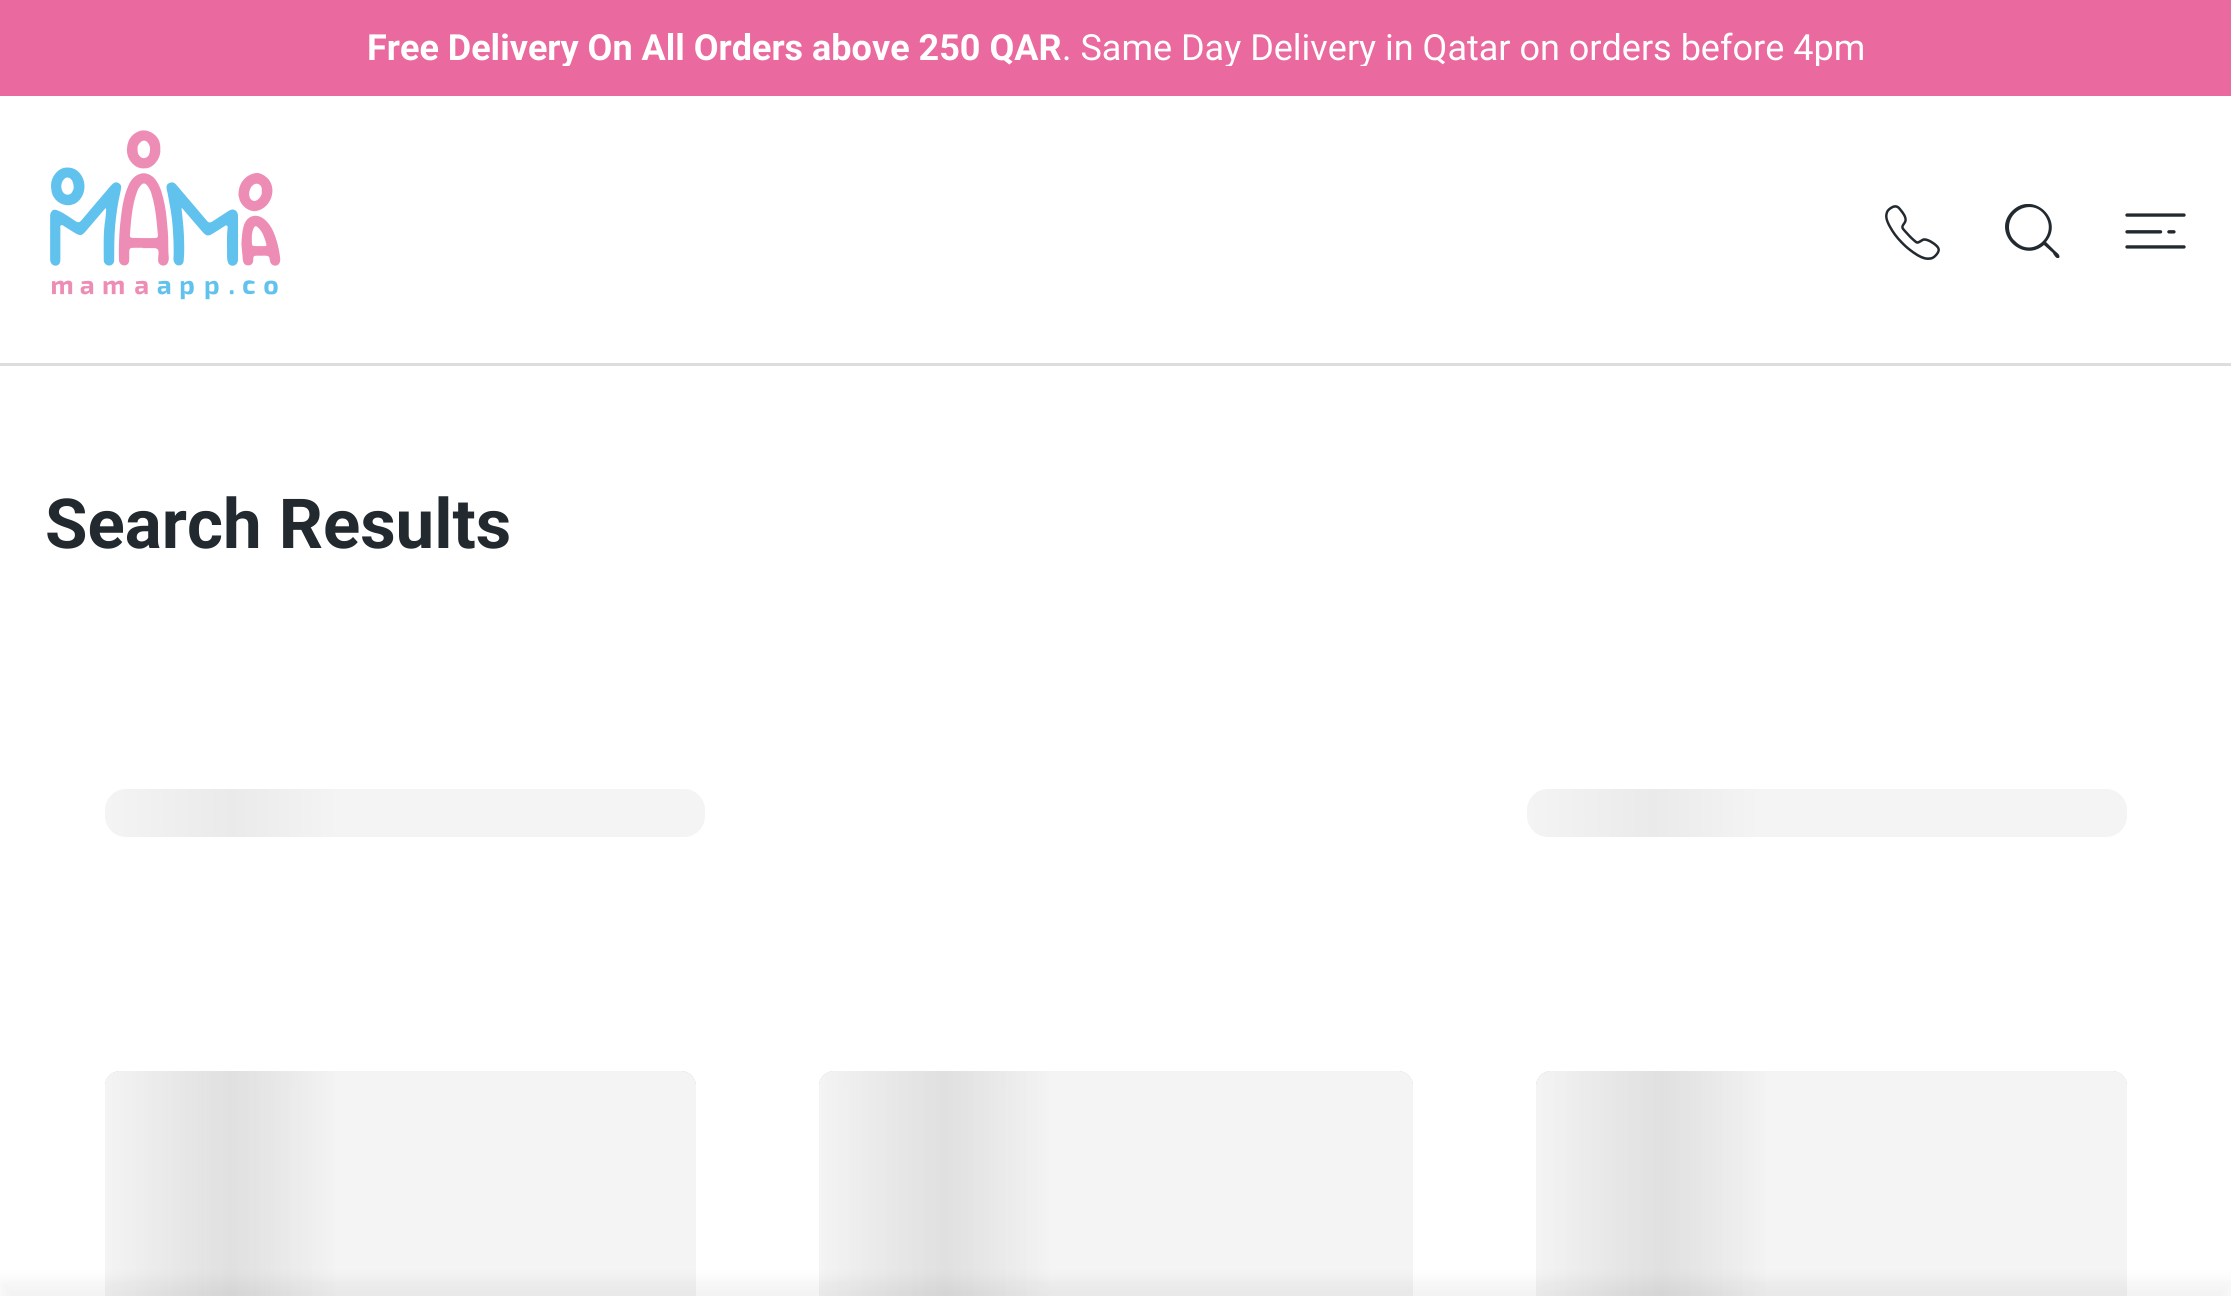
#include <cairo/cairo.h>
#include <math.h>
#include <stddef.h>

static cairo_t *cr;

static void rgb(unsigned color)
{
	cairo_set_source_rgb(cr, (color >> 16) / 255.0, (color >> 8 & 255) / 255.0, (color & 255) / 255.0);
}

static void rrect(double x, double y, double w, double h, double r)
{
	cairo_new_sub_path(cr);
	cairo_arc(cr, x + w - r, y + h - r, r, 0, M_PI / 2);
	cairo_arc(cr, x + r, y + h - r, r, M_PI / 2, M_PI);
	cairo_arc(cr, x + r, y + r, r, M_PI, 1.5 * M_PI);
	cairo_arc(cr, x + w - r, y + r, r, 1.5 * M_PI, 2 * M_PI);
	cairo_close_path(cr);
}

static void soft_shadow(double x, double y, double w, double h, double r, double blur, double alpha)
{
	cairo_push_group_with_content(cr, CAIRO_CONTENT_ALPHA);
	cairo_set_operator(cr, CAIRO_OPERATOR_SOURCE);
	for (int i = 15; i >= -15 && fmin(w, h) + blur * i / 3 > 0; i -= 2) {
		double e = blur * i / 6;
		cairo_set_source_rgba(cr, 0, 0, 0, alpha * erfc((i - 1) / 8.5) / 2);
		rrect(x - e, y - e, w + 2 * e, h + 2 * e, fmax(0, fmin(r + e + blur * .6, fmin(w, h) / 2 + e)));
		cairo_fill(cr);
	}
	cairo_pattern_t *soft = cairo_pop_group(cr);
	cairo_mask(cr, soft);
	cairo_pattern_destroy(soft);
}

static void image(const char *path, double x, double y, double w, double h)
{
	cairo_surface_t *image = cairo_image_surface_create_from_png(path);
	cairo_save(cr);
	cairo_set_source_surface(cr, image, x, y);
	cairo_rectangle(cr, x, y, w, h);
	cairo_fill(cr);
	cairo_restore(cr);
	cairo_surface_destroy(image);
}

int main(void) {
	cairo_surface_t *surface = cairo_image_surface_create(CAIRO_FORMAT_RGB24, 2231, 1296);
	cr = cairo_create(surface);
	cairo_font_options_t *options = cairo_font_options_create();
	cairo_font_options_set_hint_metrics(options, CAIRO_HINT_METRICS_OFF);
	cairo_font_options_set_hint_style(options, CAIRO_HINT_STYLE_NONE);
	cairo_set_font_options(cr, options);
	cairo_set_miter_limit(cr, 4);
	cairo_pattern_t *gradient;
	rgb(0xffffff);
	cairo_paint(cr);
	rgb(0xea699f);
	cairo_rectangle(cr, 0, 0, 2231, 96);
	cairo_fill(cr);
	rgb(0xdddddd);
	cairo_rectangle(cr, 0, 363, 2231, 3);
	cairo_fill(cr);
	image("img/1.png", 50, 130, 231, 170);
	image("img/2.png", 1885, 205, 55, 55);
	cairo_save(cr);
	cairo_rectangle(cr, 2001, 204, 63, 54);
	cairo_clip(cr);
	rgb(0x22292f);
	cairo_new_path(cr);
	cairo_move_to(cr, 2012, 211);
	cairo_curve_to(cr, 2033, 190, 2065, 220, 2046, 242);
	cairo_line_to(cr, 2055, 251);
	cairo_curve_to(cr, 2056, 252, 2061, 255, 2059, 258);
	cairo_curve_to(cr, 2057, 260, 2053, 254, 2053, 253);
	cairo_line_to(cr, 2044, 245);
	cairo_curve_to(cr, 2022, 264, 1991, 232, 2012, 211);
	cairo_close_path(cr);
	cairo_move_to(cr, 2015, 241);
	cairo_curve_to(cr, 2033, 260, 2061, 233, 2043, 213);
	cairo_curve_to(cr, 2031, 200, 2009, 210, 2009, 227);
	cairo_curve_to(cr, 2009, 232, 2011, 238, 2015, 241);
	cairo_close_path(cr);
	cairo_fill(cr);
	cairo_restore(cr);
	image("img/3.png", 2125, 213, 61, 36);
	gradient = cairo_pattern_create_linear(105, 813, 1905, 813);
	cairo_pattern_add_color_stop_rgba(gradient, 0, 0.957, 0.957, 0.957, 1);
	cairo_pattern_add_color_stop_rgba(gradient, 0.07, 0.918, 0.918, 0.918, 1);
	cairo_pattern_add_color_stop_rgba(gradient, 0.13, 0.957, 0.957, 0.957, 1);
	cairo_set_source(cr, gradient);
	cairo_pattern_destroy(gradient);
	rrect(105, 789, 600, 48, 21);
	cairo_fill(cr);
	gradient = cairo_pattern_create_linear(1527, 813, 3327, 813);
	cairo_pattern_add_color_stop_rgba(gradient, 0, 0.957, 0.957, 0.957, 1);
	cairo_pattern_add_color_stop_rgba(gradient, 0.07, 0.918, 0.918, 0.918, 1);
	cairo_pattern_add_color_stop_rgba(gradient, 0.13, 0.957, 0.957, 0.957, 1);
	cairo_set_source(cr, gradient);
	cairo_pattern_destroy(gradient);
	rrect(1527, 789, 600, 48, 21);
	cairo_fill(cr);
	rgb(0xcccccc);
	rrect(105, 1071, 591, 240, 15);
	cairo_fill(cr);
	gradient = cairo_pattern_create_linear(105, 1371, 1905, 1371);
	cairo_pattern_add_color_stop_rgba(gradient, 0, 0.957, 0.957, 0.957, 1);
	cairo_pattern_add_color_stop_rgba(gradient, 0.07, 0.898, 0.898, 0.898, 0.8);
	cairo_pattern_add_color_stop_rgba(gradient, 0.13, 0.957, 0.957, 0.957, 1);
	cairo_set_source(cr, gradient);
	cairo_pattern_destroy(gradient);
	rrect(105, 1071, 591, 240, 15);
	cairo_fill(cr);
	rgb(0xcccccc);
	rrect(819, 1071, 594, 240, 15);
	cairo_fill(cr);
	gradient = cairo_pattern_create_linear(819, 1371, 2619, 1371);
	cairo_pattern_add_color_stop_rgba(gradient, 0, 0.957, 0.957, 0.957, 1);
	cairo_pattern_add_color_stop_rgba(gradient, 0.07, 0.898, 0.898, 0.898, 0.8);
	cairo_pattern_add_color_stop_rgba(gradient, 0.13, 0.957, 0.957, 0.957, 1);
	cairo_set_source(cr, gradient);
	cairo_pattern_destroy(gradient);
	rrect(819, 1071, 594, 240, 15);
	cairo_fill(cr);
	rgb(0xcccccc);
	rrect(1536, 1071, 591, 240, 15);
	cairo_fill(cr);
	gradient = cairo_pattern_create_linear(1536, 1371, 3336, 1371);
	cairo_pattern_add_color_stop_rgba(gradient, 0, 0.957, 0.957, 0.957, 1);
	cairo_pattern_add_color_stop_rgba(gradient, 0.07, 0.898, 0.898, 0.898, 0.8);
	cairo_pattern_add_color_stop_rgba(gradient, 0.13, 0.957, 0.957, 0.957, 1);
	cairo_set_source(cr, gradient);
	cairo_pattern_destroy(gradient);
	rrect(1536, 1071, 591, 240, 15);
	cairo_fill(cr);
	rgb(0x000000);
	soft_shadow(0, 1281, 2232, 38, 0, 7.5, 0.05);
	cairo_save(cr);
	cairo_rectangle(cr, 135, 30, 1962, 36);
	cairo_clip(cr);
	cairo_select_font_face(cr, "Roboto", CAIRO_FONT_SLANT_NORMAL, CAIRO_FONT_WEIGHT_BOLD);
	cairo_set_font_size(cr, 36);
	rgb(0xffffff);
	cairo_move_to(cr, 367, 60);
	cairo_show_text(cr, "Free Delivery On All Orders above 250 QAR");
	cairo_select_font_face(cr, "Roboto", CAIRO_FONT_SLANT_NORMAL, CAIRO_FONT_WEIGHT_NORMAL);
	cairo_move_to(cr, 1062, 60);
	cairo_show_text(cr, ". Same Day Delivery in Qatar on orders before 4pm");
	cairo_restore(cr);
	cairo_select_font_face(cr, "Roboto", CAIRO_FONT_SLANT_NORMAL, CAIRO_FONT_WEIGHT_BOLD);
	cairo_set_font_size(cr, 69);
	rgb(0x22292f);
	cairo_move_to(cr, 45, 548);
	cairo_show_text(cr, "Search Results");
	cairo_surface_write_to_png(surface, "page.png");
	cairo_font_options_destroy(options);
	cairo_destroy(cr);
	cairo_surface_destroy(surface);
	return 0;
}
